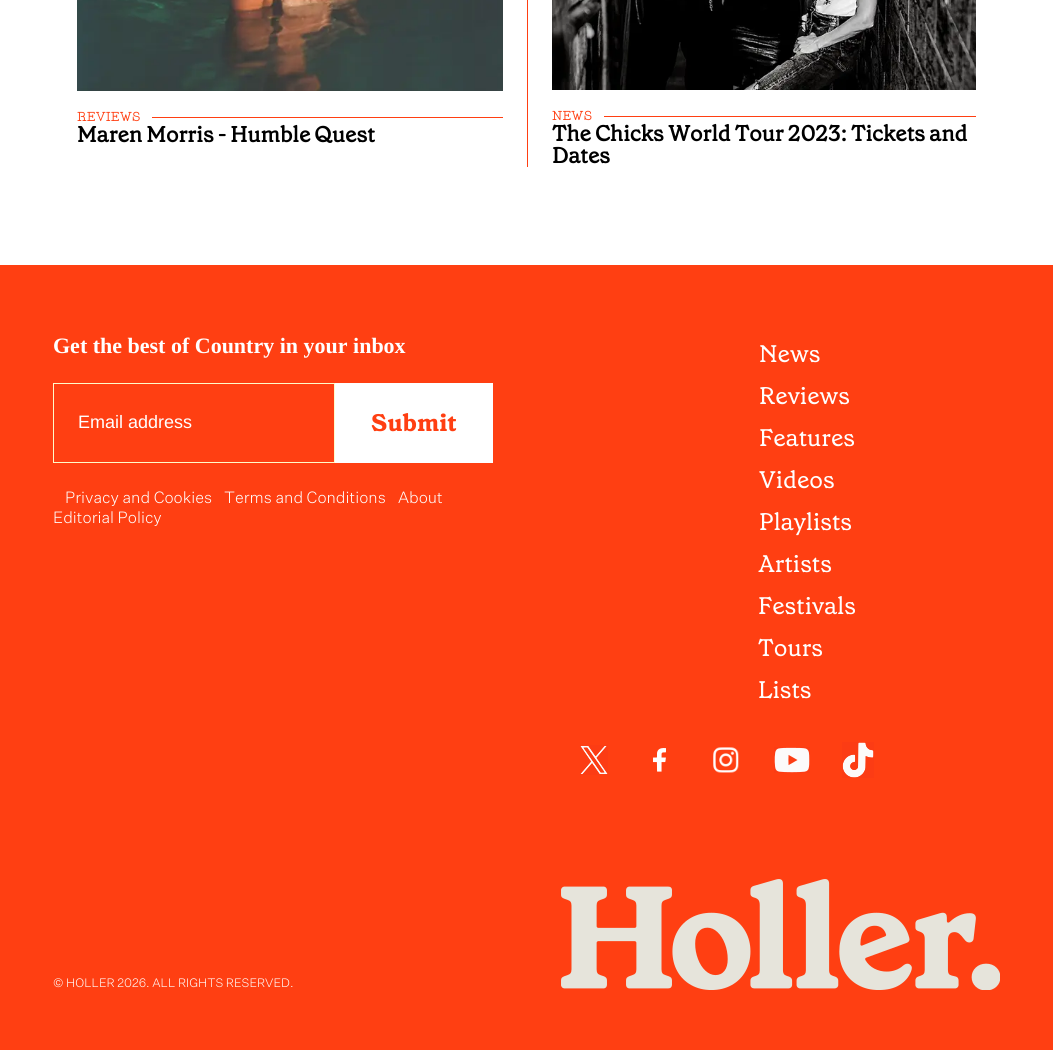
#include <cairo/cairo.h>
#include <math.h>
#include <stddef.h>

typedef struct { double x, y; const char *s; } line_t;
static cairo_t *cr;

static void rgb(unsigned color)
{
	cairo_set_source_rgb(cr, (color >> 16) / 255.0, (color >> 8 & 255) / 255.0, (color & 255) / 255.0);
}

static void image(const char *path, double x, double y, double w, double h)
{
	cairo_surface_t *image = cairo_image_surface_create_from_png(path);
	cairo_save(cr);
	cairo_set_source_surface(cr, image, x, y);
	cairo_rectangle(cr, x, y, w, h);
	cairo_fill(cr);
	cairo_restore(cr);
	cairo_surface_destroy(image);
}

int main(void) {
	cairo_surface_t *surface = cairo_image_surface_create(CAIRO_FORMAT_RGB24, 1053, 1050);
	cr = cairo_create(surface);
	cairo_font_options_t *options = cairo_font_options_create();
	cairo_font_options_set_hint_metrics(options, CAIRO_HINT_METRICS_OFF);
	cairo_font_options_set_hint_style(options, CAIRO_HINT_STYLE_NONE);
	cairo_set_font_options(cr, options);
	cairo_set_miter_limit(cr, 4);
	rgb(0xffffff);
	cairo_paint(cr);
	image("img/1.png", 77, 0, 426, 91);
	rgb(0xff3f12);
	cairo_rectangle(cr, 152, 117, 351, 1);
	cairo_fill(cr);
	cairo_rectangle(cr, 527, 0, 1, 167);
	cairo_fill(cr);
	image("img/2.png", 552, 0, 424, 90);
	cairo_rectangle(cr, 604, 116, 372, 1);
	cairo_fill(cr);
	cairo_rectangle(cr, 0, 265, 1053, 785);
	cairo_fill(cr);
	cairo_rectangle(cr, 53.5, 383.5, 281, 79);
	rgb(0xfffbca);
	cairo_set_line_width(cr, 1);
	cairo_stroke(cr);
	rgb(0xffffff);
	cairo_rectangle(cr, 335, 383, 158, 80);
	cairo_fill(cr);
	image("img/3.png", 580, 745, 28, 30);
	image("img/4.png", 653, 748, 13, 24);
	image("img/5.png", 713, 747, 26, 26);
	image("img/6.png", 774, 747, 36, 26);
	image("img/7.png", 842, 742, 32, 36);
	image("img/8.png", 561, 879, 439, 111);
	cairo_select_font_face(cr, "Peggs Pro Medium", CAIRO_FONT_SLANT_NORMAL, CAIRO_FONT_WEIGHT_NORMAL);
	cairo_set_font_size(cr, 13);
	rgb(0xff3f12);
	cairo_move_to(cr, 77, 121);
	cairo_show_text(cr, "REVIEWS");
	cairo_select_font_face(cr, "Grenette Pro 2", CAIRO_FONT_SLANT_NORMAL, CAIRO_FONT_WEIGHT_BOLD);
	cairo_set_font_size(cr, 22);
	rgb(0x000000);
	cairo_move_to(cr, 77, 142);
	cairo_show_text(cr, "Maren Morris - Humble Quest");
	cairo_select_font_face(cr, "Peggs Pro Medium", CAIRO_FONT_SLANT_NORMAL, CAIRO_FONT_WEIGHT_NORMAL);
	cairo_set_font_size(cr, 13);
	rgb(0xff3f12);
	cairo_move_to(cr, 552, 120);
	cairo_show_text(cr, "NEWS");
	cairo_select_font_face(cr, "Grenette Pro 2", CAIRO_FONT_SLANT_NORMAL, CAIRO_FONT_WEIGHT_BOLD);
	cairo_set_font_size(cr, 22);
	rgb(0x000000);
	cairo_move_to(cr, 552, 141);
	cairo_show_text(cr, "The Chicks World Tour 2023: Tickets and");
	cairo_move_to(cr, 552, 163);
	cairo_show_text(cr, "Dates");
	cairo_select_font_face(cr, "Liberation Serif", CAIRO_FONT_SLANT_NORMAL, CAIRO_FONT_WEIGHT_BOLD);
	rgb(0xffffff);
	cairo_move_to(cr, 53, 353);
	cairo_show_text(cr, "Get the best of Country in your inbox");
	cairo_select_font_face(cr, "Liberation Sans", CAIRO_FONT_SLANT_NORMAL, CAIRO_FONT_WEIGHT_NORMAL);
	cairo_set_font_size(cr, 18);
	cairo_move_to(cr, 78, 428);
	cairo_show_text(cr, "Email address");
	cairo_select_font_face(cr, "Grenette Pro", CAIRO_FONT_SLANT_NORMAL, CAIRO_FONT_WEIGHT_BOLD);
	cairo_set_font_size(cr, 24);
	rgb(0xff3f12);
	cairo_move_to(cr, 371, 431);
	cairo_show_text(cr, "Submit");
	cairo_select_font_face(cr, "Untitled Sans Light", CAIRO_FONT_SLANT_NORMAL, CAIRO_FONT_WEIGHT_NORMAL);
	cairo_set_font_size(cr, 16);
	rgb(0xffffff);
	{
		static const line_t items[] = {
			{65, 503, "Privacy and Cookies"},
			{224, 503, "Terms and Conditions"},
			{398, 503, "About"},
			{53, 523, "Editorial Policy"},
		};
		for (size_t i = 0; i < sizeof items / sizeof *items; i++) {
			cairo_move_to(cr, items[i].x, items[i].y);
			cairo_show_text(cr, items[i].s);
		}
	}
	cairo_set_font_size(cr, 12);
	cairo_move_to(cr, 53, 987);
	cairo_show_text(cr, "© HOLLER 2026. ALL RIGHTS RESERVED.");
	cairo_select_font_face(cr, "Grenette Pro", CAIRO_FONT_SLANT_NORMAL, CAIRO_FONT_WEIGHT_NORMAL);
	cairo_set_font_size(cr, 24);
	{
		static const line_t items[] = {
			{759, 362, "News"},
			{759, 404, "Reviews"},
			{759, 446, "Features"},
			{759, 488, "Videos"},
			{759, 530, "Playlists"},
			{758, 572, "Artists"},
			{758, 614, "Festivals"},
			{758, 656, "Tours"},
			{758, 698, "Lists"},
		};
		for (size_t i = 0; i < sizeof items / sizeof *items; i++) {
			cairo_move_to(cr, items[i].x, items[i].y);
			cairo_show_text(cr, items[i].s);
		}
	}
	cairo_surface_write_to_png(surface, "page.png");
	cairo_font_options_destroy(options);
	cairo_destroy(cr);
	cairo_surface_destroy(surface);
	return 0;
}
